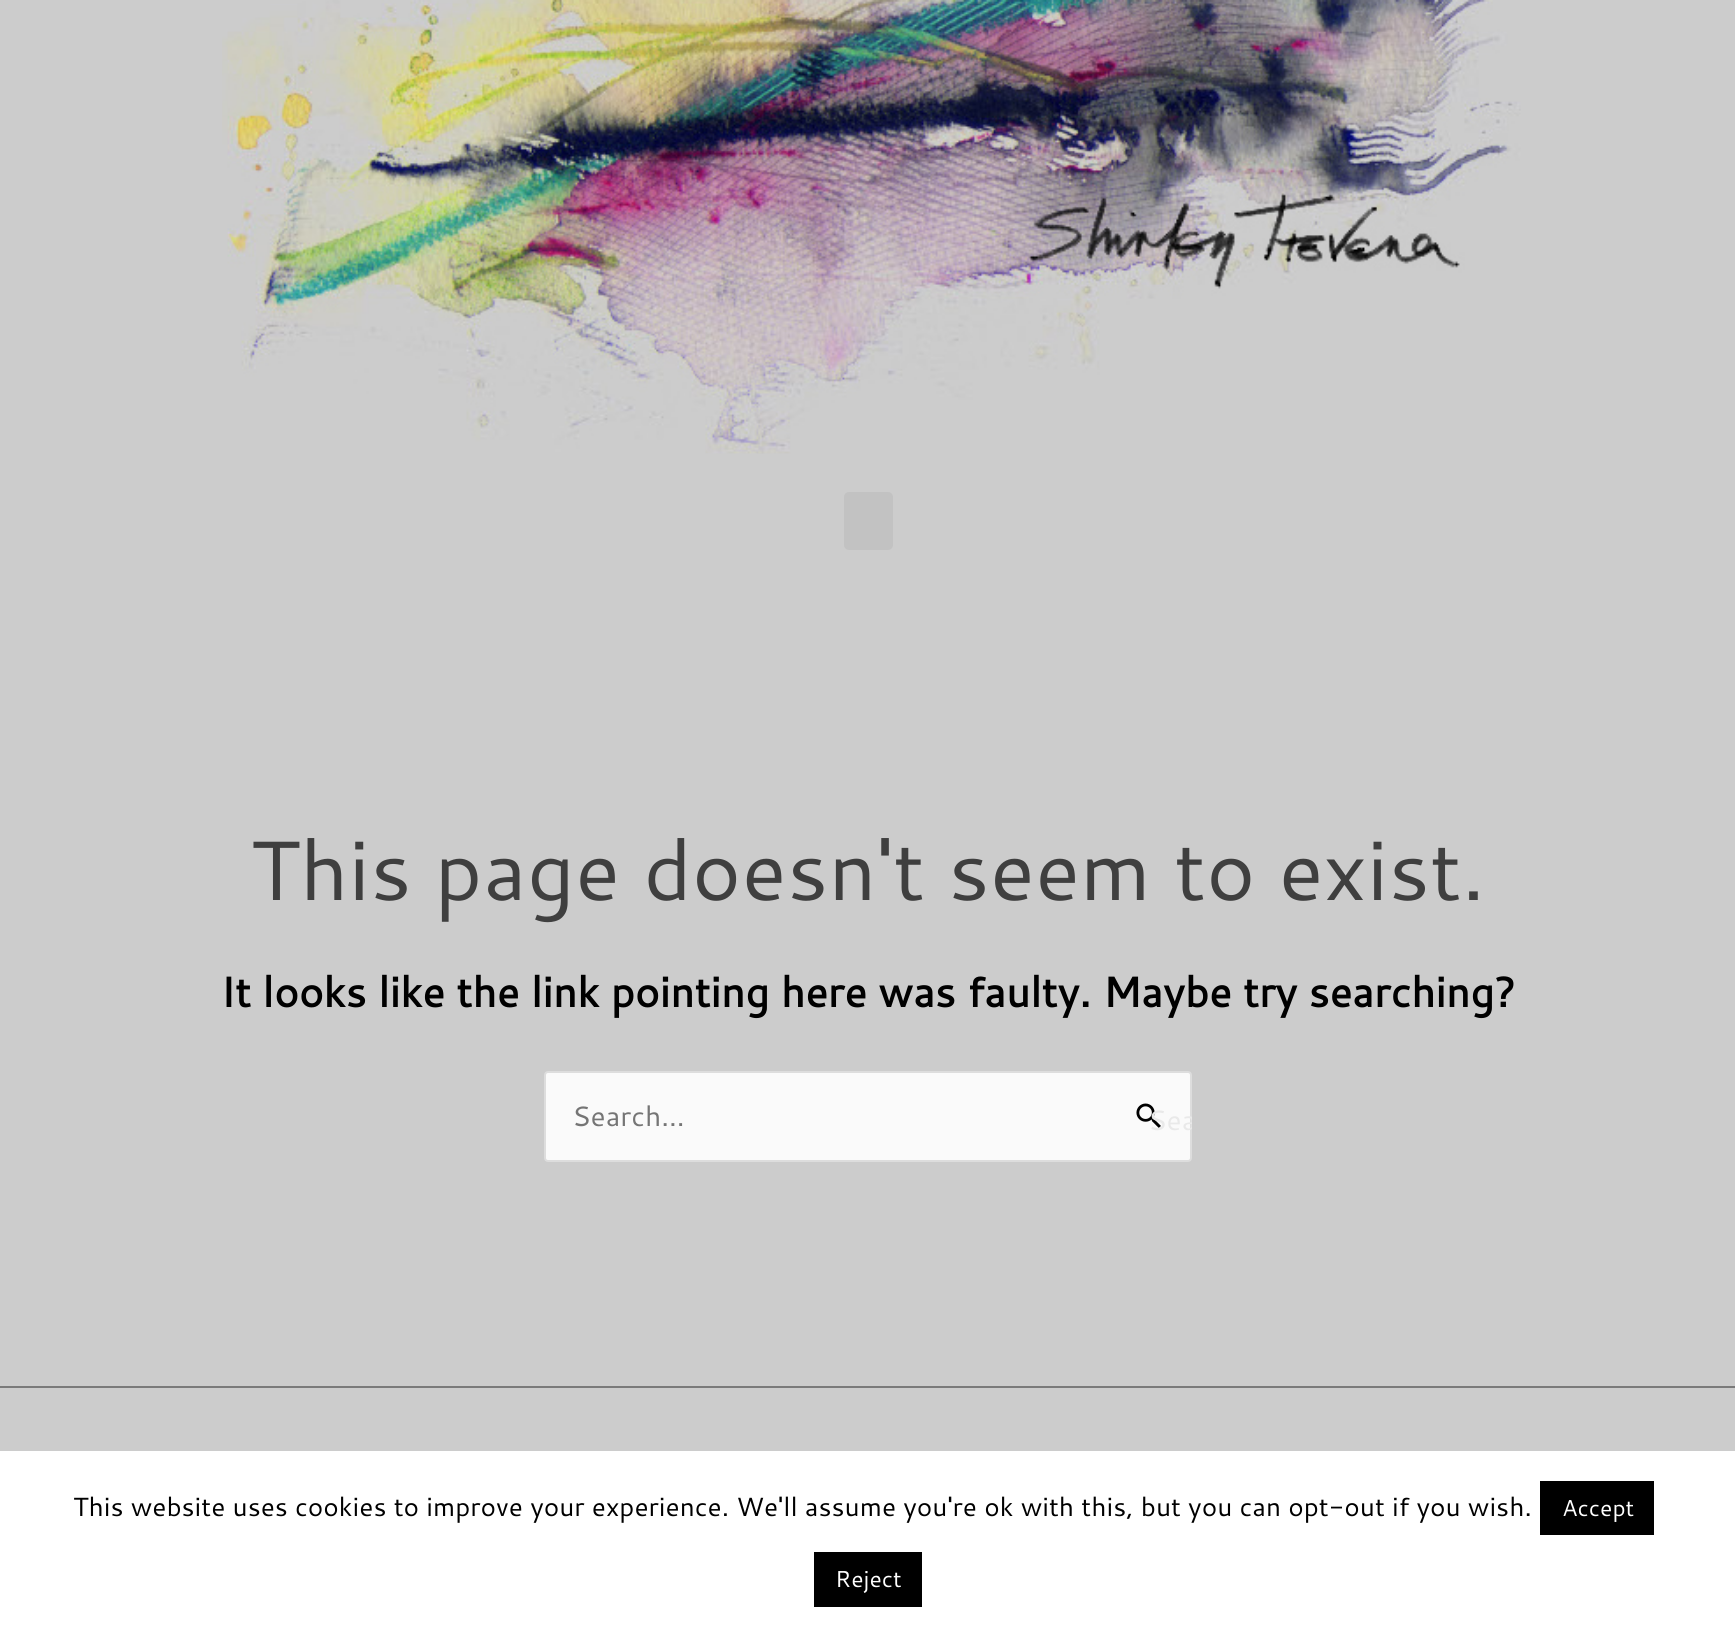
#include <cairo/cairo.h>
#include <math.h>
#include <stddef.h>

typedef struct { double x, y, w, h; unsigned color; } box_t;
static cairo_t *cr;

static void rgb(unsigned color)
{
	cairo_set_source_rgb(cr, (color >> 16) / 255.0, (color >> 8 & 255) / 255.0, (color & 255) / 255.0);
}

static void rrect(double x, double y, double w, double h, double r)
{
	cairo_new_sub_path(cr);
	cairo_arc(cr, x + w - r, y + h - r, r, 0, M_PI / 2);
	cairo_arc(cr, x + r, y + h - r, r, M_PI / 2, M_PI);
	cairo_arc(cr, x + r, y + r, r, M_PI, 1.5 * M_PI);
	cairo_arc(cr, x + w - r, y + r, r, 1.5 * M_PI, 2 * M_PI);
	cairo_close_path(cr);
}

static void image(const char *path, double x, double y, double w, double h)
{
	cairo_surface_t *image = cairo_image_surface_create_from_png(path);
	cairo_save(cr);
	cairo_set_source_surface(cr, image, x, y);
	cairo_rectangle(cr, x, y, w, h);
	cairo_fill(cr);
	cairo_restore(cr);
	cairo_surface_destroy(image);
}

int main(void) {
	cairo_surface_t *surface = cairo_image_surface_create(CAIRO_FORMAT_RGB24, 1735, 1636);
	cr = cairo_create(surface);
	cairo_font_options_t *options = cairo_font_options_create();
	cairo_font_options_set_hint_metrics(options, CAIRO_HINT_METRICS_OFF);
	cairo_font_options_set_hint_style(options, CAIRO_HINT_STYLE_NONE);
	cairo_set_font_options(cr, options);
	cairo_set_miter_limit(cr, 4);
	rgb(0xcccccc);
	cairo_paint(cr);
	image("img/1.png", 222, 0, 1299, 454);
	rgb(0xc2c2c2);
	rrect(844, 492, 49, 58, 5);
	cairo_fill(cr);
	rgb(0xfafafa);
	rrect(545, 1072, 646, 89, 3);
	cairo_fill_preserve(cr);
	rgb(0xdddddd);
	cairo_stroke(cr);
	image("img/2.png", 1136, 1103, 25, 25);
	{
		static const box_t items[] = {
			{0, 1386, 1735, 2, 0x7a7a7a},
			{0, 1451, 1735, 185, 0xffffff},
			{1540, 1481, 114, 54, 0x000000},
			{814, 1552, 108, 55, 0x000000},
		};
		for (size_t i = 0; i < sizeof items / sizeof *items; i++) {
			rgb(items[i].color);
			cairo_rectangle(cr, items[i].x, items[i].y, items[i].w, items[i].h);
			cairo_fill(cr);
		}
	}
	cairo_select_font_face(cr, "Cantarell", CAIRO_FONT_SLANT_NORMAL, CAIRO_FONT_WEIGHT_NORMAL);
	cairo_set_font_size(cr, 84);
	rgb(0x3f3f3f);
	cairo_move_to(cr, 250, 900);
	cairo_show_text(cr, "This page doesn't seem to exist.");
	cairo_select_font_face(cr, "Cantarell", CAIRO_FONT_SLANT_NORMAL, CAIRO_FONT_WEIGHT_BOLD);
	cairo_set_font_size(cr, 42);
	rgb(0x000000);
	cairo_move_to(cr, 220, 1007);
	cairo_show_text(cr, "It looks like the link pointing here was faulty. Maybe try searching?");
	cairo_select_font_face(cr, "Cantarell", CAIRO_FONT_SLANT_NORMAL, CAIRO_FONT_WEIGHT_NORMAL);
	cairo_set_font_size(cr, 28);
	rgb(0x757575);
	cairo_move_to(cr, 572, 1126);
	cairo_show_text(cr, "Search...");
	cairo_save(cr);
	rrect(1113, 1071, 79, 96, 4);
	cairo_clip(cr);
	rgb(0xe9e9e9);
	cairo_move_to(cr, 1148, 1130);
	cairo_show_text(cr, "Sea");
	cairo_restore(cr);
	cairo_set_font_size(cr, 26.25);
	rgb(0x000000);
	cairo_move_to(cr, 73, 1516);
	cairo_show_text(cr, "This website uses cookies to improve your experience. We'll assume you're ok with this, but you can opt-out if you wish.");
	cairo_set_font_size(cr, 23);
	rgb(0xffffff);
	cairo_move_to(cr, 1562, 1516);
	cairo_show_text(cr, "Accept");
	cairo_move_to(cr, 835, 1587);
	cairo_show_text(cr, "Reject");
	cairo_surface_write_to_png(surface, "page.png");
	cairo_font_options_destroy(options);
	cairo_destroy(cr);
	cairo_surface_destroy(surface);
	return 0;
}
